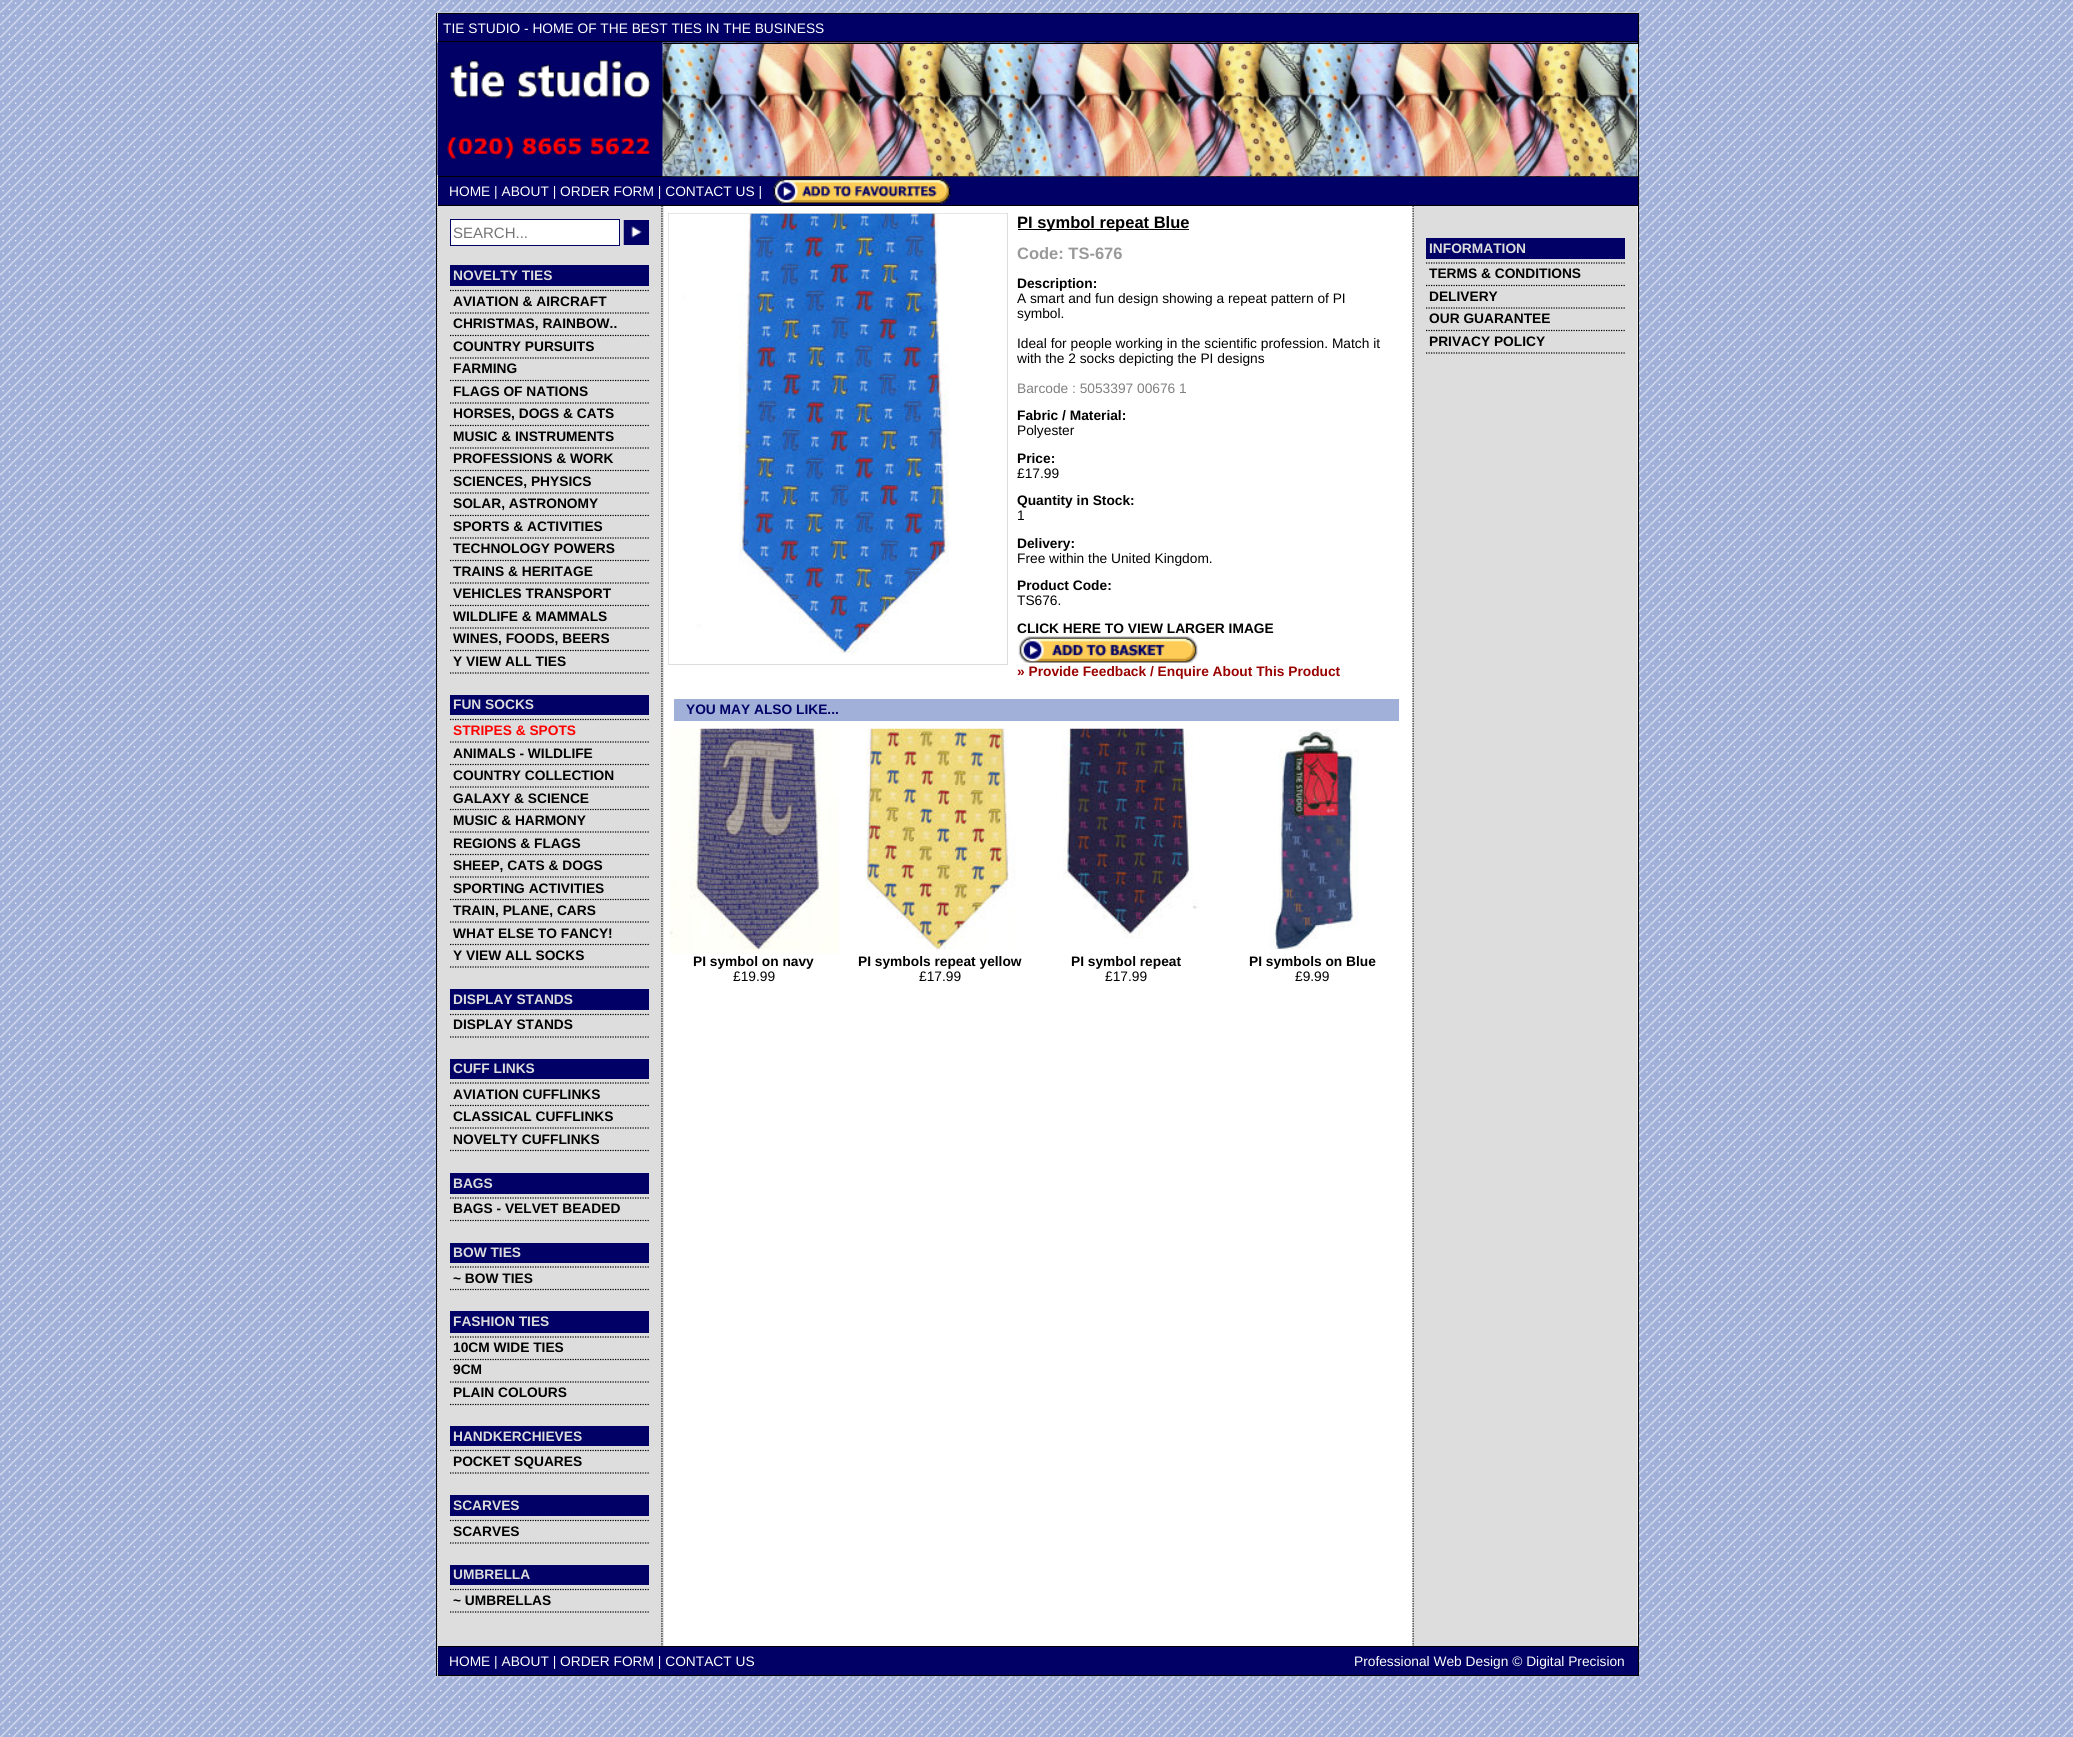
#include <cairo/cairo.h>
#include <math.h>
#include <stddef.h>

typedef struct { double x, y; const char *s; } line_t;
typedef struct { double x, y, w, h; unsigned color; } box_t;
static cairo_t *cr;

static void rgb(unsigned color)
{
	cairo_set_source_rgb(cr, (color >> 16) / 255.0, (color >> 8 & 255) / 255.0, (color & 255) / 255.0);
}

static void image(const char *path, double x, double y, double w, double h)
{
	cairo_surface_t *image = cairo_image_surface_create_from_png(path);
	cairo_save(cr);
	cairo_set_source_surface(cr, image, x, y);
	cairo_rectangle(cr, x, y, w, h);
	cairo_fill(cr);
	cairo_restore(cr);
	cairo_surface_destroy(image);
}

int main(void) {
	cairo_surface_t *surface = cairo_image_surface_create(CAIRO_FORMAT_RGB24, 2073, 1737);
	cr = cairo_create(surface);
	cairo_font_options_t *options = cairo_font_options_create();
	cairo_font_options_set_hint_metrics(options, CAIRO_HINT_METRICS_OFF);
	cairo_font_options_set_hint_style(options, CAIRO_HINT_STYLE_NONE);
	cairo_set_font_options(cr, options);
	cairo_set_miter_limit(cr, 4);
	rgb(0xffffff);
	cairo_paint(cr);
	image("img/1.png", 0, 0, 2073, 1737);
	{
		static const box_t items[] = {
			{437, 13, 1201, 1663, 0xffffff},
			{1638, 13, 1, 1663, 0x000000},
			{436, 13, 1, 1663, 0x000000},
		};
		for (size_t i = 0; i < sizeof items / sizeof *items; i++) {
			rgb(items[i].color);
			cairo_rectangle(cr, items[i].x, items[i].y, items[i].w, items[i].h);
			cairo_fill(cr);
		}
	}
	image("img/2.png", 437, 12, 227, 1665);
	image("img/3.png", 1412, 12, 226, 1665);
	{
		static const box_t items[] = {
			{438, 14, 1200, 29, 0x000066},
			{438, 13, 1200, 1, 0x000000},
			{438, 41, 1200, 1, 0x000000},
			{438, 43, 225, 133, 0x000066},
		};
		for (size_t i = 0; i < sizeof items / sizeof *items; i++) {
			rgb(items[i].color);
			cairo_rectangle(cr, items[i].x, items[i].y, items[i].w, items[i].h);
			cairo_fill(cr);
		}
	}
	image("img/4.png", 437, 42, 214, 133);
	rgb(0x000000);
	cairo_rectangle(cr, 438, 176, 1200, 1);
	cairo_fill(cr);
	image("img/5.png", 662, 42, 976, 135);
	{
		static const box_t items[] = {
			{663, 43, 975, 1, 0x000000},
			{438, 177, 1200, 28, 0x000066},
			{438, 205, 1200, 1, 0x000000},
		};
		for (size_t i = 0; i < sizeof items / sizeof *items; i++) {
			rgb(items[i].color);
			cairo_rectangle(cr, items[i].x, items[i].y, items[i].w, items[i].h);
			cairo_fill(cr);
		}
	}
	image("img/6.png", 771, 177, 181, 27);
	rgb(0xffffff);
	cairo_rectangle(cr, 450.5, 219.5, 169, 26);
	cairo_fill_preserve(cr);
	rgb(0x000066);
	cairo_set_line_width(cr, 1);
	cairo_stroke(cr);
	cairo_rectangle(cr, 642, 220, 7, 25);
	cairo_fill(cr);
	image("img/7.png", 623, 220, 19, 25);
	cairo_rectangle(cr, 450, 265, 199, 21);
	cairo_fill(cr);
	cairo_new_path(cr);
	cairo_move_to(cr, 450, 290.5);
	cairo_line_to(cr, 649, 290.5);
	rgb(0x000000);
	cairo_set_line_width(cr, 1.2);
	cairo_set_dash(cr, (double[]){1.25, 1.25}, 2, 0);
	cairo_stroke(cr);
	cairo_new_path(cr);
	cairo_move_to(cr, 450, 313);
	cairo_line_to(cr, 649, 313);
	cairo_stroke(cr);
	cairo_new_path(cr);
	cairo_move_to(cr, 450, 335.5);
	cairo_line_to(cr, 649, 335.5);
	cairo_stroke(cr);
	cairo_new_path(cr);
	cairo_move_to(cr, 450, 358);
	cairo_line_to(cr, 649, 358);
	cairo_stroke(cr);
	cairo_new_path(cr);
	cairo_move_to(cr, 450, 380.5);
	cairo_line_to(cr, 649, 380.5);
	cairo_stroke(cr);
	cairo_new_path(cr);
	cairo_move_to(cr, 450, 403);
	cairo_line_to(cr, 649, 403);
	cairo_stroke(cr);
	cairo_new_path(cr);
	cairo_move_to(cr, 450, 425.5);
	cairo_line_to(cr, 649, 425.5);
	cairo_stroke(cr);
	cairo_new_path(cr);
	cairo_move_to(cr, 450, 448);
	cairo_line_to(cr, 649, 448);
	cairo_stroke(cr);
	cairo_new_path(cr);
	cairo_move_to(cr, 450, 470.5);
	cairo_line_to(cr, 649, 470.5);
	cairo_stroke(cr);
	cairo_new_path(cr);
	cairo_move_to(cr, 450, 493);
	cairo_line_to(cr, 649, 493);
	cairo_stroke(cr);
	cairo_new_path(cr);
	cairo_move_to(cr, 450, 515.5);
	cairo_line_to(cr, 649, 515.5);
	cairo_stroke(cr);
	cairo_new_path(cr);
	cairo_move_to(cr, 450, 538);
	cairo_line_to(cr, 649, 538);
	cairo_stroke(cr);
	cairo_new_path(cr);
	cairo_move_to(cr, 450, 560.5);
	cairo_line_to(cr, 649, 560.5);
	cairo_stroke(cr);
	cairo_new_path(cr);
	cairo_move_to(cr, 450, 583);
	cairo_line_to(cr, 649, 583);
	cairo_stroke(cr);
	cairo_new_path(cr);
	cairo_move_to(cr, 450, 605.5);
	cairo_line_to(cr, 649, 605.5);
	cairo_stroke(cr);
	cairo_new_path(cr);
	cairo_move_to(cr, 450, 628);
	cairo_line_to(cr, 649, 628);
	cairo_stroke(cr);
	cairo_new_path(cr);
	cairo_move_to(cr, 450, 650.5);
	cairo_line_to(cr, 649, 650.5);
	cairo_stroke(cr);
	cairo_new_path(cr);
	cairo_move_to(cr, 450, 673);
	cairo_line_to(cr, 649, 673);
	cairo_stroke(cr);
	rgb(0x000066);
	cairo_rectangle(cr, 450, 695, 199, 20);
	cairo_fill(cr);
	cairo_new_path(cr);
	cairo_move_to(cr, 450, 719.5);
	cairo_line_to(cr, 649, 719.5);
	rgb(0x000000);
	cairo_stroke(cr);
	cairo_new_path(cr);
	cairo_move_to(cr, 450, 742);
	cairo_line_to(cr, 649, 742);
	cairo_stroke(cr);
	cairo_new_path(cr);
	cairo_move_to(cr, 450, 764.5);
	cairo_line_to(cr, 649, 764.5);
	cairo_stroke(cr);
	cairo_new_path(cr);
	cairo_move_to(cr, 450, 787);
	cairo_line_to(cr, 649, 787);
	cairo_stroke(cr);
	cairo_new_path(cr);
	cairo_move_to(cr, 450, 809.5);
	cairo_line_to(cr, 649, 809.5);
	cairo_stroke(cr);
	cairo_new_path(cr);
	cairo_move_to(cr, 450, 832);
	cairo_line_to(cr, 649, 832);
	cairo_stroke(cr);
	cairo_new_path(cr);
	cairo_move_to(cr, 450, 854.5);
	cairo_line_to(cr, 649, 854.5);
	cairo_stroke(cr);
	cairo_new_path(cr);
	cairo_move_to(cr, 450, 877);
	cairo_line_to(cr, 649, 877);
	cairo_stroke(cr);
	cairo_new_path(cr);
	cairo_move_to(cr, 450, 899.5);
	cairo_line_to(cr, 649, 899.5);
	cairo_stroke(cr);
	cairo_new_path(cr);
	cairo_move_to(cr, 450, 922);
	cairo_line_to(cr, 649, 922);
	cairo_stroke(cr);
	cairo_new_path(cr);
	cairo_move_to(cr, 450, 944.5);
	cairo_line_to(cr, 649, 944.5);
	cairo_stroke(cr);
	cairo_new_path(cr);
	cairo_move_to(cr, 450, 967);
	cairo_line_to(cr, 649, 967);
	cairo_stroke(cr);
	rgb(0x000066);
	cairo_rectangle(cr, 450, 989, 199, 21);
	cairo_fill(cr);
	cairo_new_path(cr);
	cairo_move_to(cr, 450, 1014.5);
	cairo_line_to(cr, 649, 1014.5);
	rgb(0x000000);
	cairo_stroke(cr);
	cairo_new_path(cr);
	cairo_move_to(cr, 450, 1037);
	cairo_line_to(cr, 649, 1037);
	cairo_stroke(cr);
	rgb(0x000066);
	cairo_rectangle(cr, 450, 1059, 199, 20);
	cairo_fill(cr);
	cairo_new_path(cr);
	cairo_move_to(cr, 450, 1083);
	cairo_line_to(cr, 649, 1083);
	rgb(0x000000);
	cairo_stroke(cr);
	cairo_new_path(cr);
	cairo_move_to(cr, 450, 1105.5);
	cairo_line_to(cr, 649, 1105.5);
	cairo_stroke(cr);
	cairo_new_path(cr);
	cairo_move_to(cr, 450, 1128);
	cairo_line_to(cr, 649, 1128);
	cairo_stroke(cr);
	cairo_new_path(cr);
	cairo_move_to(cr, 450, 1150.5);
	cairo_line_to(cr, 649, 1150.5);
	cairo_stroke(cr);
	rgb(0x000066);
	cairo_rectangle(cr, 450, 1173, 199, 21);
	cairo_fill(cr);
	cairo_new_path(cr);
	cairo_move_to(cr, 450, 1198);
	cairo_line_to(cr, 649, 1198);
	rgb(0x000000);
	cairo_stroke(cr);
	cairo_new_path(cr);
	cairo_move_to(cr, 450, 1220.5);
	cairo_line_to(cr, 649, 1220.5);
	cairo_stroke(cr);
	rgb(0x000066);
	cairo_rectangle(cr, 450, 1243, 199, 20);
	cairo_fill(cr);
	cairo_new_path(cr);
	cairo_move_to(cr, 450, 1267);
	cairo_line_to(cr, 649, 1267);
	rgb(0x000000);
	cairo_stroke(cr);
	cairo_new_path(cr);
	cairo_move_to(cr, 450, 1289.5);
	cairo_line_to(cr, 649, 1289.5);
	cairo_stroke(cr);
	rgb(0x000066);
	cairo_rectangle(cr, 450, 1311, 199, 22);
	cairo_fill(cr);
	cairo_new_path(cr);
	cairo_move_to(cr, 450, 1337);
	cairo_line_to(cr, 649, 1337);
	rgb(0x000000);
	cairo_stroke(cr);
	cairo_new_path(cr);
	cairo_move_to(cr, 450, 1359.5);
	cairo_line_to(cr, 649, 1359.5);
	cairo_stroke(cr);
	cairo_new_path(cr);
	cairo_move_to(cr, 450, 1382);
	cairo_line_to(cr, 649, 1382);
	cairo_stroke(cr);
	cairo_new_path(cr);
	cairo_move_to(cr, 450, 1404.5);
	cairo_line_to(cr, 649, 1404.5);
	cairo_stroke(cr);
	rgb(0x000066);
	cairo_rectangle(cr, 450, 1426, 199, 20);
	cairo_fill(cr);
	cairo_new_path(cr);
	cairo_move_to(cr, 450, 1450.5);
	cairo_line_to(cr, 649, 1450.5);
	rgb(0x000000);
	cairo_stroke(cr);
	cairo_new_path(cr);
	cairo_move_to(cr, 450, 1473);
	cairo_line_to(cr, 649, 1473);
	cairo_stroke(cr);
	rgb(0x000066);
	cairo_rectangle(cr, 450, 1495, 199, 21);
	cairo_fill(cr);
	cairo_new_path(cr);
	cairo_move_to(cr, 450, 1520.5);
	cairo_line_to(cr, 649, 1520.5);
	rgb(0x000000);
	cairo_stroke(cr);
	cairo_new_path(cr);
	cairo_move_to(cr, 450, 1543);
	cairo_line_to(cr, 649, 1543);
	cairo_stroke(cr);
	rgb(0x000066);
	cairo_rectangle(cr, 450, 1565, 199, 20);
	cairo_fill(cr);
	cairo_new_path(cr);
	cairo_move_to(cr, 450, 1589.5);
	cairo_line_to(cr, 649, 1589.5);
	rgb(0x000000);
	cairo_stroke(cr);
	cairo_new_path(cr);
	cairo_move_to(cr, 450, 1612);
	cairo_line_to(cr, 649, 1612);
	cairo_stroke(cr);
	cairo_rectangle(cr, 668.5, 213.5, 339, 451);
	rgb(0xdddddd);
	cairo_set_line_width(cr, 1);
	cairo_set_dash(cr, NULL, 0, 0);
	cairo_stroke(cr);
	image("img/8.png", 668, 213, 338, 451);
	rgb(0x000000);
	cairo_rectangle(cr, 1018, 229, 171, 1);
	cairo_fill(cr);
	image("img/9.png", 1018, 636, 180, 27);
	rgb(0xa0b0d8);
	cairo_rectangle(cr, 674, 699, 725, 22);
	cairo_fill(cr);
	image("img/10.png", 670, 728, 169, 226);
	image("img/11.png", 866, 728, 150, 223);
	image("img/12.png", 1062, 728, 137, 211);
	image("img/13.png", 1269, 729, 90, 220);
	rgb(0x000066);
	cairo_rectangle(cr, 1426, 238, 199, 21);
	cairo_fill(cr);
	cairo_new_path(cr);
	cairo_move_to(cr, 1426, 263);
	cairo_line_to(cr, 1625, 263);
	rgb(0x000000);
	cairo_set_line_width(cr, 1.2);
	cairo_set_dash(cr, (double[]){1.25, 1.25}, 2, 0);
	cairo_stroke(cr);
	cairo_new_path(cr);
	cairo_move_to(cr, 1426, 285.5);
	cairo_line_to(cr, 1625, 285.5);
	cairo_stroke(cr);
	cairo_new_path(cr);
	cairo_move_to(cr, 1426, 308);
	cairo_line_to(cr, 1625, 308);
	cairo_stroke(cr);
	cairo_new_path(cr);
	cairo_move_to(cr, 1426, 330.5);
	cairo_line_to(cr, 1625, 330.5);
	cairo_stroke(cr);
	cairo_new_path(cr);
	cairo_move_to(cr, 1426, 353);
	cairo_line_to(cr, 1625, 353);
	cairo_stroke(cr);
	{
		static const box_t items[] = {
			{438, 1647, 1200, 28, 0x000066},
			{438, 1646, 1200, 1, 0x000000},
			{438, 1675, 1200, 1, 0x000000},
		};
		for (size_t i = 0; i < sizeof items / sizeof *items; i++) {
			rgb(items[i].color);
			cairo_rectangle(cr, items[i].x, items[i].y, items[i].w, items[i].h);
			cairo_fill(cr);
		}
	}
	cairo_select_font_face(cr, "Liberation Sans", CAIRO_FONT_SLANT_NORMAL, CAIRO_FONT_WEIGHT_NORMAL);
	cairo_set_font_size(cr, 13.75);
	rgb(0xffffff);
	cairo_move_to(cr, 443, 33);
	cairo_show_text(cr, "TIE STUDIO - HOME OF THE BEST TIES IN THE BUSINESS");
	cairo_move_to(cr, 449, 196);
	cairo_show_text(cr, "HOME | ABOUT | ORDER FORM | CONTACT US |");
	cairo_set_font_size(cr, 15);
	rgb(0x757575);
	cairo_move_to(cr, 453, 238);
	cairo_show_text(cr, "SEARCH...");
	cairo_select_font_face(cr, "Liberation Sans", CAIRO_FONT_SLANT_NORMAL, CAIRO_FONT_WEIGHT_BOLD);
	cairo_set_font_size(cr, 13.75);
	rgb(0xdddddd);
	cairo_move_to(cr, 453, 280);
	cairo_show_text(cr, "NOVELTY TIES");
	rgb(0x000000);
	{
		static const line_t items[] = {
			{453, 306, "AVIATION & AIRCRAFT"},
			{453, 328, "CHRISTMAS, RAINBOW.."},
			{453, 351, "COUNTRY PURSUITS"},
			{453, 373, "FARMING"},
			{453, 396, "FLAGS OF NATIONS"},
			{453, 418, "HORSES, DOGS & CATS"},
			{453, 441, "MUSIC & INSTRUMENTS"},
			{453, 463, "PROFESSIONS & WORK"},
			{453, 486, "SCIENCES, PHYSICS"},
			{453, 508, "SOLAR, ASTRONOMY"},
			{453, 531, "SPORTS & ACTIVITIES"},
			{453, 553, "TECHNOLOGY POWERS"},
			{453, 576, "TRAINS & HERITAGE"},
			{453, 598, "VEHICLES TRANSPORT"},
			{453, 621, "WILDLIFE & MAMMALS"},
			{453, 643, "WINES, FOODS, BEERS"},
			{453, 666, "Y VIEW ALL TIES"},
		};
		for (size_t i = 0; i < sizeof items / sizeof *items; i++) {
			cairo_move_to(cr, items[i].x, items[i].y);
			cairo_show_text(cr, items[i].s);
		}
	}
	rgb(0xdddddd);
	cairo_move_to(cr, 453, 709);
	cairo_show_text(cr, "FUN SOCKS");
	rgb(0xff0000);
	cairo_move_to(cr, 453, 735);
	cairo_show_text(cr, "STRIPES & SPOTS");
	rgb(0x000000);
	{
		static const line_t items[] = {
			{453, 758, "ANIMALS - WILDLIFE"},
			{453, 780, "COUNTRY COLLECTION"},
			{453, 803, "GALAXY & SCIENCE"},
			{453, 825, "MUSIC & HARMONY"},
			{453, 848, "REGIONS & FLAGS"},
			{453, 870, "SHEEP, CATS & DOGS"},
			{453, 893, "SPORTING ACTIVITIES"},
			{453, 915, "TRAIN, PLANE, CARS"},
			{453, 938, "WHAT ELSE TO FANCY!"},
			{453, 960, "Y VIEW ALL SOCKS"},
		};
		for (size_t i = 0; i < sizeof items / sizeof *items; i++) {
			cairo_move_to(cr, items[i].x, items[i].y);
			cairo_show_text(cr, items[i].s);
		}
	}
	rgb(0xdddddd);
	cairo_move_to(cr, 453, 1004);
	cairo_show_text(cr, "DISPLAY STANDS");
	rgb(0x000000);
	cairo_move_to(cr, 453, 1029);
	cairo_show_text(cr, "DISPLAY STANDS");
	rgb(0xdddddd);
	cairo_move_to(cr, 453, 1073);
	cairo_show_text(cr, "CUFF LINKS");
	rgb(0x000000);
	{
		static const line_t items[] = {
			{453, 1099, "AVIATION CUFFLINKS"},
			{453, 1121, "CLASSICAL CUFFLINKS"},
			{453, 1144, "NOVELTY CUFFLINKS"},
		};
		for (size_t i = 0; i < sizeof items / sizeof *items; i++) {
			cairo_move_to(cr, items[i].x, items[i].y);
			cairo_show_text(cr, items[i].s);
		}
	}
	rgb(0xdddddd);
	cairo_move_to(cr, 453, 1188);
	cairo_show_text(cr, "BAGS");
	rgb(0x000000);
	cairo_move_to(cr, 453, 1213);
	cairo_show_text(cr, "BAGS - VELVET BEADED");
	rgb(0xdddddd);
	cairo_move_to(cr, 453, 1257);
	cairo_show_text(cr, "BOW TIES");
	rgb(0x000000);
	cairo_move_to(cr, 453, 1283);
	cairo_show_text(cr, "~ BOW TIES");
	rgb(0xdddddd);
	cairo_move_to(cr, 453, 1326);
	cairo_show_text(cr, "FASHION TIES");
	rgb(0x000000);
	{
		static const line_t items[] = {
			{453, 1352, "10CM WIDE TIES"},
			{453, 1374, "9CM"},
			{453, 1397, "PLAIN COLOURS"},
		};
		for (size_t i = 0; i < sizeof items / sizeof *items; i++) {
			cairo_move_to(cr, items[i].x, items[i].y);
			cairo_show_text(cr, items[i].s);
		}
	}
	rgb(0xdddddd);
	cairo_move_to(cr, 453, 1441);
	cairo_show_text(cr, "HANDKERCHIEVES");
	rgb(0x000000);
	cairo_move_to(cr, 453, 1466);
	cairo_show_text(cr, "POCKET SQUARES");
	rgb(0xdddddd);
	cairo_move_to(cr, 453, 1510);
	cairo_show_text(cr, "SCARVES");
	rgb(0x000000);
	cairo_move_to(cr, 453, 1536);
	cairo_show_text(cr, "SCARVES");
	rgb(0xdddddd);
	cairo_move_to(cr, 453, 1579);
	cairo_show_text(cr, "UMBRELLA");
	rgb(0x000000);
	cairo_move_to(cr, 453, 1605);
	cairo_show_text(cr, "~ UMBRELLAS");
	cairo_set_font_size(cr, 16.5);
	cairo_move_to(cr, 1017, 228);
	cairo_show_text(cr, "PI symbol repeat Blue");
	rgb(0x999999);
	cairo_move_to(cr, 1017, 259);
	cairo_show_text(cr, "Code: TS-676");
	cairo_set_font_size(cr, 13.75);
	rgb(0x000000);
	cairo_move_to(cr, 1017, 288);
	cairo_show_text(cr, "Description:");
	cairo_select_font_face(cr, "Liberation Sans", CAIRO_FONT_SLANT_NORMAL, CAIRO_FONT_WEIGHT_NORMAL);
	{
		static const line_t items[] = {
			{1017, 303, "A smart and fun design showing a repeat pattern of PI"},
			{1017, 318, "symbol."},
			{1017, 348, "Ideal for people working in the scientific profession. Match it"},
			{1017, 363, "with the 2 socks depicting the PI designs"},
		};
		for (size_t i = 0; i < sizeof items / sizeof *items; i++) {
			cairo_move_to(cr, items[i].x, items[i].y);
			cairo_show_text(cr, items[i].s);
		}
	}
	rgb(0x808080);
	cairo_move_to(cr, 1017, 393);
	cairo_show_text(cr, "Barcode : 5053397 00676 1");
	cairo_select_font_face(cr, "Liberation Sans", CAIRO_FONT_SLANT_NORMAL, CAIRO_FONT_WEIGHT_BOLD);
	rgb(0x000000);
	cairo_move_to(cr, 1017, 420);
	cairo_show_text(cr, "Fabric / Material:");
	cairo_select_font_face(cr, "Liberation Sans", CAIRO_FONT_SLANT_NORMAL, CAIRO_FONT_WEIGHT_NORMAL);
	cairo_move_to(cr, 1017, 435);
	cairo_show_text(cr, "Polyester");
	cairo_select_font_face(cr, "Liberation Sans", CAIRO_FONT_SLANT_NORMAL, CAIRO_FONT_WEIGHT_BOLD);
	cairo_move_to(cr, 1017, 463);
	cairo_show_text(cr, "Price:");
	cairo_select_font_face(cr, "Liberation Sans", CAIRO_FONT_SLANT_NORMAL, CAIRO_FONT_WEIGHT_NORMAL);
	cairo_move_to(cr, 1017, 478);
	cairo_show_text(cr, "£17.99");
	cairo_select_font_face(cr, "Liberation Sans", CAIRO_FONT_SLANT_NORMAL, CAIRO_FONT_WEIGHT_BOLD);
	cairo_move_to(cr, 1017, 505);
	cairo_show_text(cr, "Quantity in Stock:");
	cairo_select_font_face(cr, "Liberation Sans", CAIRO_FONT_SLANT_NORMAL, CAIRO_FONT_WEIGHT_NORMAL);
	cairo_move_to(cr, 1017, 520);
	cairo_show_text(cr, "1");
	cairo_select_font_face(cr, "Liberation Sans", CAIRO_FONT_SLANT_NORMAL, CAIRO_FONT_WEIGHT_BOLD);
	cairo_move_to(cr, 1017, 548);
	cairo_show_text(cr, "Delivery:");
	cairo_select_font_face(cr, "Liberation Sans", CAIRO_FONT_SLANT_NORMAL, CAIRO_FONT_WEIGHT_NORMAL);
	cairo_move_to(cr, 1017, 563);
	cairo_show_text(cr, "Free within the United Kingdom.");
	cairo_select_font_face(cr, "Liberation Sans", CAIRO_FONT_SLANT_NORMAL, CAIRO_FONT_WEIGHT_BOLD);
	cairo_move_to(cr, 1017, 590);
	cairo_show_text(cr, "Product Code:");
	cairo_select_font_face(cr, "Liberation Sans", CAIRO_FONT_SLANT_NORMAL, CAIRO_FONT_WEIGHT_NORMAL);
	cairo_move_to(cr, 1017, 605);
	cairo_show_text(cr, "TS676.");
	cairo_select_font_face(cr, "Liberation Sans", CAIRO_FONT_SLANT_NORMAL, CAIRO_FONT_WEIGHT_BOLD);
	cairo_move_to(cr, 1017, 633);
	cairo_show_text(cr, "CLICK HERE TO VIEW LARGER IMAGE");
	rgb(0x990000);
	cairo_move_to(cr, 1017, 676);
	cairo_show_text(cr, "» Provide Feedback / Enquire About This Product");
	rgb(0x000066);
	cairo_move_to(cr, 686, 714);
	cairo_show_text(cr, "YOU MAY ALSO LIKE...");
	rgb(0x000000);
	cairo_move_to(cr, 693, 966);
	cairo_show_text(cr, "PI symbol on navy");
	cairo_select_font_face(cr, "Liberation Sans", CAIRO_FONT_SLANT_NORMAL, CAIRO_FONT_WEIGHT_NORMAL);
	cairo_move_to(cr, 733, 981);
	cairo_show_text(cr, "£19.99");
	cairo_select_font_face(cr, "Liberation Sans", CAIRO_FONT_SLANT_NORMAL, CAIRO_FONT_WEIGHT_BOLD);
	cairo_move_to(cr, 858, 966);
	cairo_show_text(cr, "PI symbols repeat yellow");
	cairo_select_font_face(cr, "Liberation Sans", CAIRO_FONT_SLANT_NORMAL, CAIRO_FONT_WEIGHT_NORMAL);
	cairo_move_to(cr, 919, 981);
	cairo_show_text(cr, "£17.99");
	cairo_select_font_face(cr, "Liberation Sans", CAIRO_FONT_SLANT_NORMAL, CAIRO_FONT_WEIGHT_BOLD);
	cairo_move_to(cr, 1071, 966);
	cairo_show_text(cr, "PI symbol repeat");
	cairo_select_font_face(cr, "Liberation Sans", CAIRO_FONT_SLANT_NORMAL, CAIRO_FONT_WEIGHT_NORMAL);
	cairo_move_to(cr, 1105, 981);
	cairo_show_text(cr, "£17.99");
	cairo_select_font_face(cr, "Liberation Sans", CAIRO_FONT_SLANT_NORMAL, CAIRO_FONT_WEIGHT_BOLD);
	cairo_move_to(cr, 1249, 966);
	cairo_show_text(cr, "PI symbols on Blue");
	cairo_select_font_face(cr, "Liberation Sans", CAIRO_FONT_SLANT_NORMAL, CAIRO_FONT_WEIGHT_NORMAL);
	cairo_move_to(cr, 1295, 981);
	cairo_show_text(cr, "£9.99");
	cairo_select_font_face(cr, "Liberation Sans", CAIRO_FONT_SLANT_NORMAL, CAIRO_FONT_WEIGHT_BOLD);
	rgb(0xdddddd);
	cairo_move_to(cr, 1429, 253);
	cairo_show_text(cr, "INFORMATION");
	rgb(0x000000);
	{
		static const line_t items[] = {
			{1429, 278, "TERMS & CONDITIONS"},
			{1429, 301, "DELIVERY"},
			{1429, 323, "OUR GUARANTEE"},
			{1429, 346, "PRIVACY POLICY"},
		};
		for (size_t i = 0; i < sizeof items / sizeof *items; i++) {
			cairo_move_to(cr, items[i].x, items[i].y);
			cairo_show_text(cr, items[i].s);
		}
	}
	cairo_select_font_face(cr, "Liberation Sans", CAIRO_FONT_SLANT_NORMAL, CAIRO_FONT_WEIGHT_NORMAL);
	rgb(0xffffff);
	cairo_move_to(cr, 449, 1666);
	cairo_show_text(cr, "HOME | ABOUT | ORDER FORM | CONTACT US");
	cairo_move_to(cr, 1354, 1666);
	cairo_show_text(cr, "Professional Web Design © Digital Precision");
	cairo_surface_write_to_png(surface, "page.png");
	cairo_font_options_destroy(options);
	cairo_destroy(cr);
	cairo_surface_destroy(surface);
	return 0;
}
